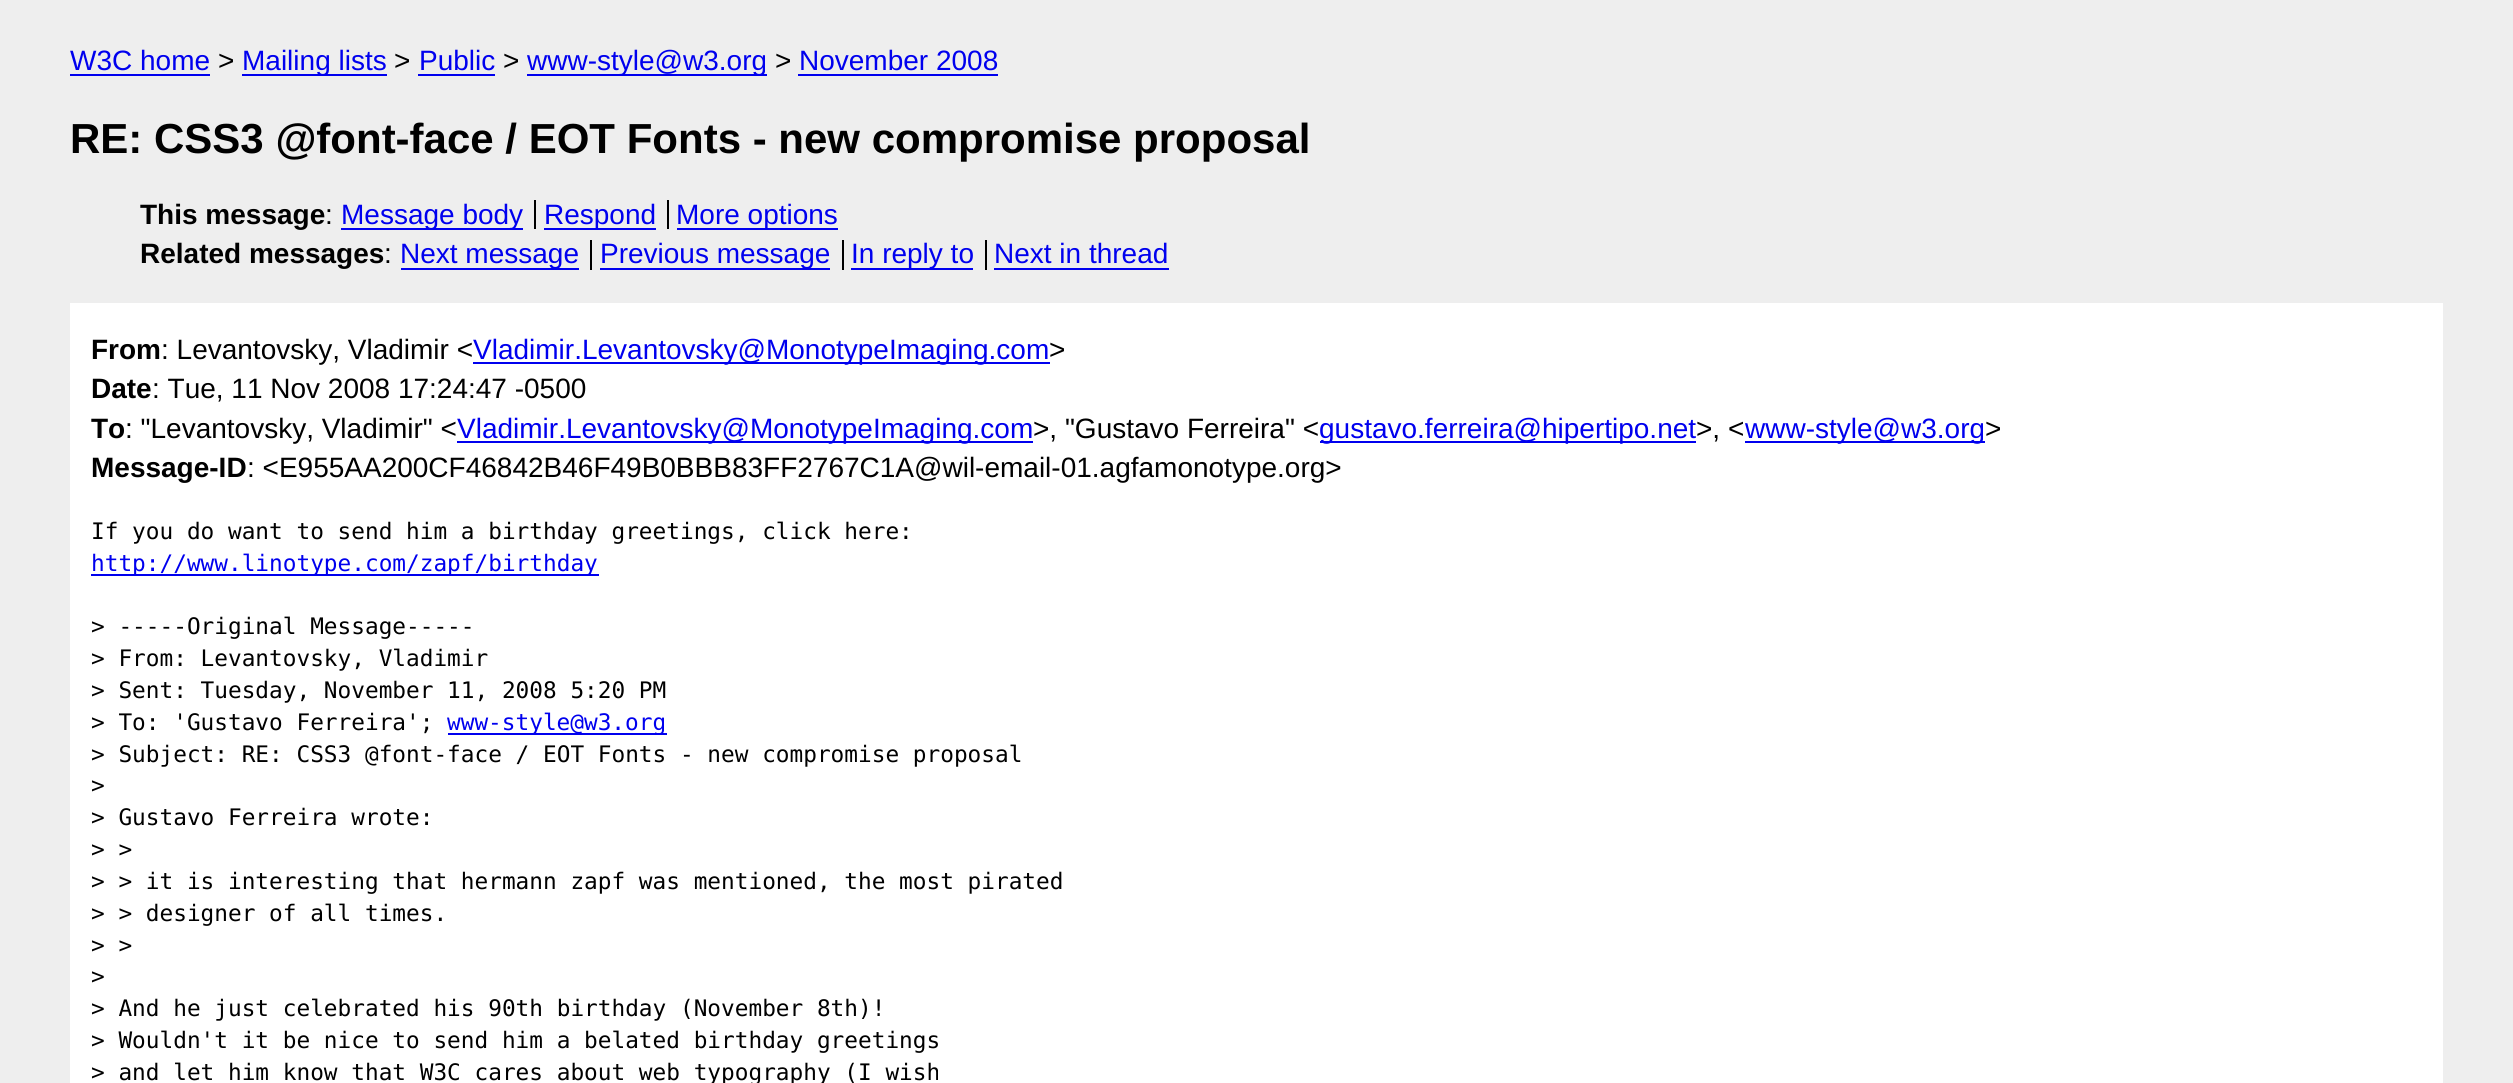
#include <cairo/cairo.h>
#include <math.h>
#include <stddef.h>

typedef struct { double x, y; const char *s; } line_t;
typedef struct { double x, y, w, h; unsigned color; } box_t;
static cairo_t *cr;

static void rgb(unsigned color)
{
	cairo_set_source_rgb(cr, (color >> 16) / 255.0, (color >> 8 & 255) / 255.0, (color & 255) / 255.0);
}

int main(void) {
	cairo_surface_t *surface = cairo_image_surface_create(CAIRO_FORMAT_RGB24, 2513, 1083);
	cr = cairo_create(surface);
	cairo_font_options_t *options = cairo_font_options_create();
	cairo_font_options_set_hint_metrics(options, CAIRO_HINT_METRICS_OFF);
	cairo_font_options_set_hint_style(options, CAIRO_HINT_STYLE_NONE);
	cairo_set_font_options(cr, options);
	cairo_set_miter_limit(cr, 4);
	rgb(0xeeeeee);
	cairo_paint(cr);
	{
		static const box_t items[] = {
			{70, 74, 140, 2, 0x0000ee},
			{242, 74, 145, 2, 0x0000ee},
			{418, 74, 77, 2, 0x0000ee},
			{527, 74, 240, 2, 0x0000ee},
			{798, 74, 200, 2, 0x0000ee},
			{341, 228, 182, 2, 0x0000ee},
			{534, 200, 2, 29, 0x000000},
			{544, 228, 112, 2, 0x0000ee},
			{667, 200, 2, 29, 0x000000},
			{677, 228, 161, 2, 0x0000ee},
			{401, 268, 178, 2, 0x0000ee},
			{590, 240, 2, 30, 0x000000},
			{600, 268, 230, 2, 0x0000ee},
			{842, 240, 2, 30, 0x000000},
			{985, 240, 2, 30, 0x000000},
			{851, 268, 122, 2, 0x0000ee},
			{994, 268, 175, 2, 0x0000ee},
			{70, 303, 2373, 780, 0xffffff},
			{473, 362, 577, 2, 0x0000ee},
			{457, 441, 576, 2, 0x0000ee},
			{1320, 441, 376, 2, 0x0000ee},
			{1745, 441, 240, 2, 0x0000ee},
			{91, 574, 508, 2, 0x0000ee},
			{448, 733, 219, 2, 0x0000ee},
		};
		for (size_t i = 0; i < sizeof items / sizeof *items; i++) {
			rgb(items[i].color);
			cairo_rectangle(cr, items[i].x, items[i].y, items[i].w, items[i].h);
			cairo_fill(cr);
		}
	}
	cairo_select_font_face(cr, "Liberation Sans", CAIRO_FONT_SLANT_NORMAL, CAIRO_FONT_WEIGHT_NORMAL);
	cairo_set_font_size(cr, 28);
	cairo_move_to(cr, 70, 70);
	cairo_show_text(cr, "W3C home");
	rgb(0x000000);
	cairo_move_to(cr, 218, 70);
	cairo_show_text(cr, ">");
	rgb(0x0000ee);
	cairo_move_to(cr, 242, 70);
	cairo_show_text(cr, "Mailing lists");
	rgb(0x000000);
	cairo_move_to(cr, 394, 70);
	cairo_show_text(cr, ">");
	rgb(0x0000ee);
	cairo_move_to(cr, 419, 70);
	cairo_show_text(cr, "Public");
	rgb(0x000000);
	cairo_move_to(cr, 503, 70);
	cairo_show_text(cr, ">");
	rgb(0x0000ee);
	cairo_move_to(cr, 527, 70);
	cairo_show_text(cr, "www-style@w3.org");
	rgb(0x000000);
	cairo_move_to(cr, 775, 70);
	cairo_show_text(cr, ">");
	rgb(0x0000ee);
	cairo_move_to(cr, 799, 70);
	cairo_show_text(cr, "November 2008");
	cairo_select_font_face(cr, "Liberation Sans", CAIRO_FONT_SLANT_NORMAL, CAIRO_FONT_WEIGHT_BOLD);
	cairo_set_font_size(cr, 42);
	rgb(0x000000);
	cairo_move_to(cr, 70, 153);
	cairo_show_text(cr, "RE: CSS3 @font-face / EOT Fonts - new compromise proposal");
	cairo_set_font_size(cr, 28);
	cairo_move_to(cr, 140, 224);
	cairo_show_text(cr, "This message");
	cairo_select_font_face(cr, "Liberation Sans", CAIRO_FONT_SLANT_NORMAL, CAIRO_FONT_WEIGHT_NORMAL);
	cairo_move_to(cr, 325, 224);
	cairo_show_text(cr, ":");
	rgb(0x0000ee);
	{
		static const line_t items[] = {
			{341, 224, "Message body"},
			{544, 224, "Respond"},
			{676, 224, "More options"},
		};
		for (size_t i = 0; i < sizeof items / sizeof *items; i++) {
			cairo_move_to(cr, items[i].x, items[i].y);
			cairo_show_text(cr, items[i].s);
		}
	}
	cairo_select_font_face(cr, "Liberation Sans", CAIRO_FONT_SLANT_NORMAL, CAIRO_FONT_WEIGHT_BOLD);
	rgb(0x000000);
	cairo_move_to(cr, 140, 263);
	cairo_show_text(cr, "Related messages");
	cairo_select_font_face(cr, "Liberation Sans", CAIRO_FONT_SLANT_NORMAL, CAIRO_FONT_WEIGHT_NORMAL);
	cairo_move_to(cr, 384, 263);
	cairo_show_text(cr, ":");
	rgb(0x0000ee);
	{
		static const line_t items[] = {
			{400, 263, "Next message"},
			{600, 263, "Previous message"},
			{851, 263, "In reply to"},
			{994, 263, "Next in thread"},
		};
		for (size_t i = 0; i < sizeof items / sizeof *items; i++) {
			cairo_move_to(cr, items[i].x, items[i].y);
			cairo_show_text(cr, items[i].s);
		}
	}
	cairo_select_font_face(cr, "Liberation Sans", CAIRO_FONT_SLANT_NORMAL, CAIRO_FONT_WEIGHT_BOLD);
	rgb(0x000000);
	cairo_move_to(cr, 91, 359);
	cairo_show_text(cr, "From");
	cairo_select_font_face(cr, "Liberation Sans", CAIRO_FONT_SLANT_NORMAL, CAIRO_FONT_WEIGHT_NORMAL);
	cairo_move_to(cr, 161, 359);
	cairo_show_text(cr, ": Levantovsky, Vladimir <");
	rgb(0x0000ee);
	cairo_move_to(cr, 473, 359);
	cairo_show_text(cr, "Vladimir.Levantovsky@MonotypeImaging.com");
	rgb(0x000000);
	cairo_move_to(cr, 1049, 359);
	cairo_show_text(cr, ">");
	cairo_select_font_face(cr, "Liberation Sans", CAIRO_FONT_SLANT_NORMAL, CAIRO_FONT_WEIGHT_BOLD);
	cairo_move_to(cr, 91, 398);
	cairo_show_text(cr, "Date");
	cairo_select_font_face(cr, "Liberation Sans", CAIRO_FONT_SLANT_NORMAL, CAIRO_FONT_WEIGHT_NORMAL);
	cairo_move_to(cr, 152, 398);
	cairo_show_text(cr, ": Tue, 11 Nov 2008 17:24:47 -0500");
	cairo_select_font_face(cr, "Liberation Sans", CAIRO_FONT_SLANT_NORMAL, CAIRO_FONT_WEIGHT_BOLD);
	cairo_move_to(cr, 91, 438);
	cairo_show_text(cr, "To");
	cairo_select_font_face(cr, "Liberation Sans", CAIRO_FONT_SLANT_NORMAL, CAIRO_FONT_WEIGHT_NORMAL);
	cairo_move_to(cr, 125, 438);
	cairo_show_text(cr, ": \"Levantovsky, Vladimir\" <");
	rgb(0x0000ee);
	cairo_move_to(cr, 457, 438);
	cairo_show_text(cr, "Vladimir.Levantovsky@MonotypeImaging.com");
	rgb(0x000000);
	cairo_move_to(cr, 1033, 438);
	cairo_show_text(cr, ">, \"Gustavo Ferreira\" <");
	rgb(0x0000ee);
	cairo_move_to(cr, 1319, 438);
	cairo_show_text(cr, "gustavo.ferreira@hipertipo.net");
	rgb(0x000000);
	cairo_move_to(cr, 1696, 438);
	cairo_show_text(cr, ">, <");
	rgb(0x0000ee);
	cairo_move_to(cr, 1745, 438);
	cairo_show_text(cr, "www-style@w3.org");
	rgb(0x000000);
	cairo_move_to(cr, 1985, 438);
	cairo_show_text(cr, ">");
	cairo_select_font_face(cr, "Liberation Sans", CAIRO_FONT_SLANT_NORMAL, CAIRO_FONT_WEIGHT_BOLD);
	cairo_move_to(cr, 91, 477);
	cairo_show_text(cr, "Message-ID");
	cairo_select_font_face(cr, "Liberation Sans", CAIRO_FONT_SLANT_NORMAL, CAIRO_FONT_WEIGHT_NORMAL);
	cairo_move_to(cr, 247, 477);
	cairo_show_text(cr, ": <E955AA200CF46842B46F49B0BBB83FF2767C1A@wil-email-01.agfamonotype.org>");
	cairo_select_font_face(cr, "DejaVu Sans Mono", CAIRO_FONT_SLANT_NORMAL, CAIRO_FONT_WEIGHT_NORMAL);
	cairo_set_font_size(cr, 22.75);
	cairo_move_to(cr, 91, 539);
	cairo_show_text(cr, "If you do want to send him a birthday greetings, click here:");
	rgb(0x0000ee);
	cairo_move_to(cr, 91, 571);
	cairo_show_text(cr, "http://www.linotype.com/zapf/birthday");
	rgb(0x000000);
	{
		static const line_t items[] = {
			{91, 634, "> -----Original Message-----"},
			{91, 666, "> From: Levantovsky, Vladimir"},
			{91, 698, "> Sent: Tuesday, November 11, 2008 5:20 PM"},
			{91, 730, "> To: 'Gustavo Ferreira';"},
		};
		for (size_t i = 0; i < sizeof items / sizeof *items; i++) {
			cairo_move_to(cr, items[i].x, items[i].y);
			cairo_show_text(cr, items[i].s);
		}
	}
	rgb(0x0000ee);
	cairo_move_to(cr, 447, 730);
	cairo_show_text(cr, "www-style@w3.org");
	rgb(0x000000);
	{
		static const line_t items[] = {
			{91, 762, "> Subject: RE: CSS3 @font-face / EOT Fonts - new compromise proposal"},
			{91, 793, ">"},
			{91, 825, "> Gustavo Ferreira wrote:"},
			{91, 857, "> >"},
			{91, 889, "> > it is interesting that hermann zapf was mentioned, the most pirated"},
			{91, 921, "> > designer of all times."},
			{91, 953, "> >"},
			{91, 984, ">"},
			{91, 1016, "> And he just celebrated his 90th birthday (November 8th)!"},
			{91, 1048, "> Wouldn't it be nice to send him a belated birthday greetings"},
			{91, 1080, "> and let him know that W3C cares about web typography (I wish"},
		};
		for (size_t i = 0; i < sizeof items / sizeof *items; i++) {
			cairo_move_to(cr, items[i].x, items[i].y);
			cairo_show_text(cr, items[i].s);
		}
	}
	cairo_surface_write_to_png(surface, "page.png");
	cairo_font_options_destroy(options);
	cairo_destroy(cr);
	cairo_surface_destroy(surface);
	return 0;
}
